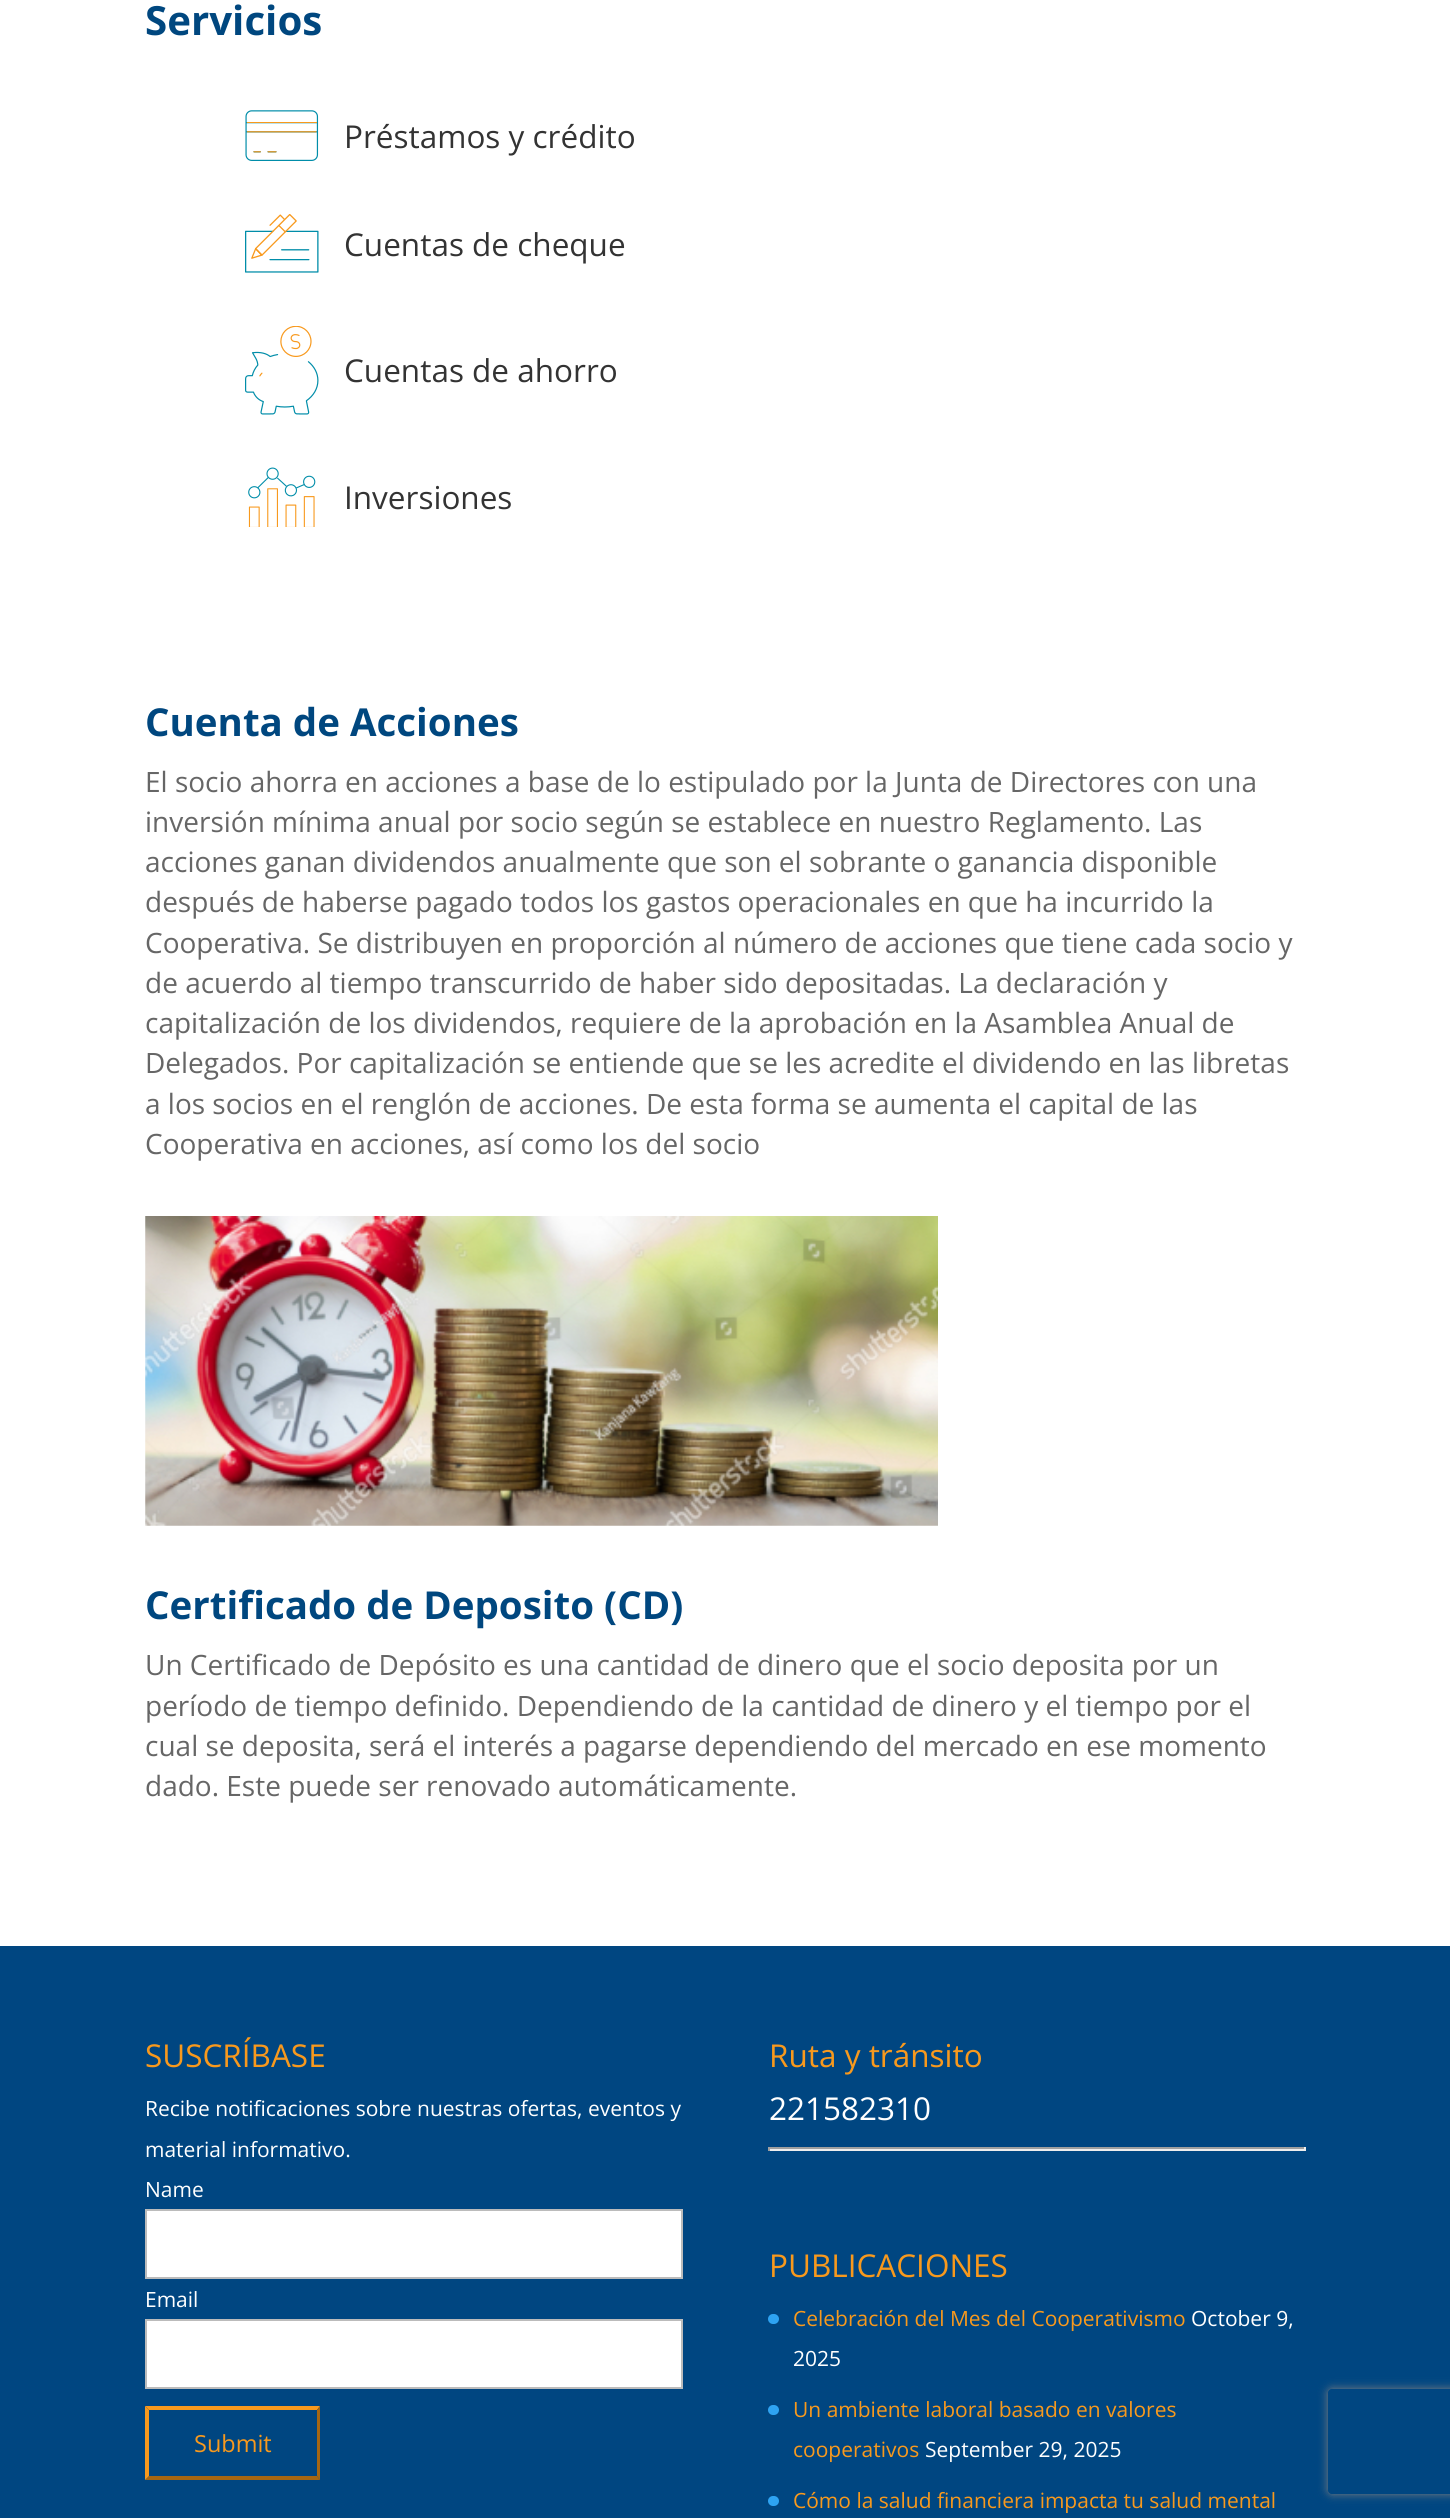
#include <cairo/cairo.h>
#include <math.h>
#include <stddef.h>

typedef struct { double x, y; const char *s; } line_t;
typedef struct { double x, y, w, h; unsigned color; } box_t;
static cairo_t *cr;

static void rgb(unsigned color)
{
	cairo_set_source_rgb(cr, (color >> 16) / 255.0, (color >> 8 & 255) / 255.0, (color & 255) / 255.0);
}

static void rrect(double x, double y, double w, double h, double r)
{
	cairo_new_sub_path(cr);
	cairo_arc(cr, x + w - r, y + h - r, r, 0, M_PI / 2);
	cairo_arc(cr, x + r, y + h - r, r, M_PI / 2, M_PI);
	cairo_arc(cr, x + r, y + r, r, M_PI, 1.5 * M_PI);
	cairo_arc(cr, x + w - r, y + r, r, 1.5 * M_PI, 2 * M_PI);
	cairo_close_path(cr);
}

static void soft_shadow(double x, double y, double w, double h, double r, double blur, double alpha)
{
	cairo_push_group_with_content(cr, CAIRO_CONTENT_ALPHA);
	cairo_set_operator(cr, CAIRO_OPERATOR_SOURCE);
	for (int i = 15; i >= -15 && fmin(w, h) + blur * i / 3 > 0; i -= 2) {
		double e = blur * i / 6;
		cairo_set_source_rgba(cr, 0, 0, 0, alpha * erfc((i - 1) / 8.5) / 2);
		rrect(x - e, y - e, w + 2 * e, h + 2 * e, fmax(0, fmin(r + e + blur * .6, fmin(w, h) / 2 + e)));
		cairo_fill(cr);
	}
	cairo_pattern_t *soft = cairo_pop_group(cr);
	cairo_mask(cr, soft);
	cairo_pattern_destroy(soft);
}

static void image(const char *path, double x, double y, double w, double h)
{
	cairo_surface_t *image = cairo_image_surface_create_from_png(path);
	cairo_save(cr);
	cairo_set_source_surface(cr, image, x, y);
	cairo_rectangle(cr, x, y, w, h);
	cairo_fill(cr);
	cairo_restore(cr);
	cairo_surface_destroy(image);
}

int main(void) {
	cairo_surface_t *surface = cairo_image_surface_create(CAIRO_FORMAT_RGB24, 1450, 2518);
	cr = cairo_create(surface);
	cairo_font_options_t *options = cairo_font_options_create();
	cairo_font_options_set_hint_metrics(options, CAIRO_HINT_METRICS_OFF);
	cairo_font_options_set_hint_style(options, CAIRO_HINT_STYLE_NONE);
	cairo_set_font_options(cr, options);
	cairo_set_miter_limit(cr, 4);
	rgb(0xffffff);
	cairo_paint(cr);
	image("img/1.png", 245, 110, 74, 51);
	image("img/2.png", 245, 214, 74, 59);
	image("img/3.png", 245, 326, 74, 89);
	image("img/4.png", 248, 467, 68, 60);
	image("img/5.png", 145, 1216, 793, 310);
	rgb(0x004681);
	cairo_rectangle(cr, 0, 1946, 1450, 572);
	cairo_fill(cr);
	rgb(0xffffff);
	cairo_rectangle(cr, 146, 2210, 536, 68);
	cairo_fill_preserve(cr);
	rgb(0xbbbbbb);
	cairo_stroke(cr);
	rgb(0xffffff);
	cairo_rectangle(cr, 146, 2320, 536, 68);
	cairo_fill_preserve(cr);
	rgb(0xbbbbbb);
	cairo_stroke(cr);
	rgb(0xf8991d);
	cairo_new_path(cr);
	cairo_move_to(cr, 145, 2406);
	cairo_line_to(cr, 320, 2406);
	cairo_line_to(cr, 317, 2410);
	cairo_line_to(cr, 149, 2410);
	cairo_close_path(cr);
	cairo_fill(cr);
	rgb(0xa56613);
	cairo_new_path(cr);
	cairo_move_to(cr, 320, 2406);
	cairo_line_to(cr, 320, 2480);
	cairo_line_to(cr, 317, 2476);
	cairo_line_to(cr, 317, 2410);
	cairo_close_path(cr);
	cairo_fill(cr);
	cairo_new_path(cr);
	cairo_move_to(cr, 320, 2480);
	cairo_line_to(cr, 145, 2480);
	cairo_line_to(cr, 149, 2476);
	cairo_line_to(cr, 317, 2476);
	cairo_close_path(cr);
	cairo_fill(cr);
	rgb(0xf8991d);
	cairo_new_path(cr);
	cairo_move_to(cr, 145, 2480);
	cairo_line_to(cr, 145, 2406);
	cairo_line_to(cr, 149, 2410);
	cairo_line_to(cr, 149, 2476);
	cairo_close_path(cr);
	cairo_fill(cr);
	{
		static const box_t items[] = {
			{768, 2147, 538, 2, 0x9f9f9f},
			{1304, 2147, 2, 4, 0xeeeeee},
			{768, 2149, 538, 2, 0xeeeeee},
			{768, 2147, 2, 4, 0x9f9f9f},
		};
		for (size_t i = 0; i < sizeof items / sizeof *items; i++) {
			rgb(items[i].color);
			cairo_rectangle(cr, items[i].x, items[i].y, items[i].w, items[i].h);
			cairo_fill(cr);
		}
	}
	rgb(0x2ea3f2);
	rrect(768, 2314, 11, 10, 5);
	cairo_fill(cr);
	rrect(768, 2405, 11, 10, 5);
	cairo_fill(cr);
	rrect(768, 2496, 11, 10, 5);
	cairo_fill(cr);
	cairo_save(cr);
	cairo_set_fill_rule(cr, CAIRO_FILL_RULE_EVEN_ODD);
	cairo_new_path(cr);
	cairo_move_to(cr, 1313, 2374);
	cairo_line_to(cr, 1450, 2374);
	cairo_line_to(cr, 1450, 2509);
	cairo_line_to(cr, 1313, 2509);
	cairo_close_path(cr);
	cairo_move_to(cr, 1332, 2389);
	cairo_line_to(cr, 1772, 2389);
	cairo_curve_to(cr, 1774, 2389, 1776, 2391, 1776, 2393);
	cairo_line_to(cr, 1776, 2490);
	cairo_curve_to(cr, 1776, 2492, 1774, 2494, 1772, 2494);
	cairo_line_to(cr, 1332, 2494);
	cairo_curve_to(cr, 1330, 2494, 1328, 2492, 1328, 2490);
	cairo_line_to(cr, 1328, 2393);
	cairo_curve_to(cr, 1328, 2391, 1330, 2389, 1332, 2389);
	cairo_close_path(cr);
	cairo_clip(cr);
	rgb(0x808080);
	soft_shadow(1328, 2389, 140, 105, 4, 4.5, 1);
	cairo_restore(cr);
	cairo_select_font_face(cr, "Open Sans", CAIRO_FONT_SLANT_NORMAL, CAIRO_FONT_WEIGHT_BOLD);
	cairo_set_font_size(cr, 40.25);
	rgb(0x00477f);
	cairo_move_to(cr, 145, 35);
	cairo_show_text(cr, "Servicios");
	cairo_select_font_face(cr, "Open Sans", CAIRO_FONT_SLANT_NORMAL, CAIRO_FONT_WEIGHT_NORMAL);
	cairo_set_font_size(cr, 31.5);
	rgb(0x333333);
	{
		static const line_t items[] = {
			{344, 148, "Préstamos y crédito"},
			{344, 256, "Cuentas de cheque"},
			{344, 382, "Cuentas de ahorro"},
			{344, 509, "Inversiones"},
		};
		for (size_t i = 0; i < sizeof items / sizeof *items; i++) {
			cairo_move_to(cr, items[i].x, items[i].y);
			cairo_show_text(cr, items[i].s);
		}
	}
	cairo_select_font_face(cr, "Open Sans", CAIRO_FONT_SLANT_NORMAL, CAIRO_FONT_WEIGHT_BOLD);
	cairo_set_font_size(cr, 38.5);
	rgb(0x00477f);
	cairo_move_to(cr, 145, 736);
	cairo_show_text(cr, "Cuenta de Acciones");
	cairo_select_font_face(cr, "Open Sans", CAIRO_FONT_SLANT_NORMAL, CAIRO_FONT_WEIGHT_NORMAL);
	cairo_set_font_size(cr, 28);
	rgb(0x666666);
	{
		static const line_t items[] = {
			{145, 792, "El socio ahorra en acciones a base de lo estipulado por la Junta de Directores con una"},
			{145, 832, "inversión mínima anual por socio según se establece en nuestro Reglamento. Las"},
			{145, 872, "acciones ganan dividendos anualmente que son el sobrante o ganancia disponible"},
			{145, 912, "después de haberse pagado todos los gastos operacionales en que ha incurrido la"},
			{145, 953, "Cooperativa. Se distribuyen en proporción al número de acciones que tiene cada socio y"},
			{145, 993, "de acuerdo al tiempo transcurrido de haber sido depositadas. La declaración y"},
			{145, 1033, "capitalización de los dividendos, requiere de la aprobación en la Asamblea Anual de"},
			{145, 1073, "Delegados. Por capitalización se entiende que se les acredite el dividendo en las libretas"},
			{145, 1114, "a los socios en el renglón de acciones. De esta forma se aumenta el capital de las"},
			{145, 1154, "Cooperativa en acciones, así como los del socio"},
		};
		for (size_t i = 0; i < sizeof items / sizeof *items; i++) {
			cairo_move_to(cr, items[i].x, items[i].y);
			cairo_show_text(cr, items[i].s);
		}
	}
	cairo_select_font_face(cr, "Open Sans", CAIRO_FONT_SLANT_NORMAL, CAIRO_FONT_WEIGHT_BOLD);
	cairo_set_font_size(cr, 38.5);
	rgb(0x00477f);
	cairo_move_to(cr, 145, 1619);
	cairo_show_text(cr, "Certificado de Deposito (CD)");
	cairo_select_font_face(cr, "Open Sans", CAIRO_FONT_SLANT_NORMAL, CAIRO_FONT_WEIGHT_NORMAL);
	cairo_set_font_size(cr, 28);
	rgb(0x666666);
	{
		static const line_t items[] = {
			{145, 1675, "Un Certificado de Depósito es una cantidad de dinero que el socio deposita por un"},
			{145, 1716, "período de tiempo definido. Dependiendo de la cantidad de dinero y el tiempo por el"},
			{145, 1756, "cual se deposita, será el interés a pagarse dependiendo del mercado en ese momento"},
			{145, 1796, "dado. Este puede ser renovado automáticamente."},
		};
		for (size_t i = 0; i < sizeof items / sizeof *items; i++) {
			cairo_move_to(cr, items[i].x, items[i].y);
			cairo_show_text(cr, items[i].s);
		}
	}
	cairo_set_font_size(cr, 31.5);
	rgb(0xf8991d);
	cairo_move_to(cr, 145, 2067);
	cairo_show_text(cr, "SUSCRÍBASE");
	cairo_set_font_size(cr, 21);
	rgb(0xffffff);
	{
		static const line_t items[] = {
			{145, 2116, "Recibe notificaciones sobre nuestras ofertas, eventos y"},
			{145, 2157, "material informativo."},
			{145, 2197, "Name"},
			{145, 2307, "Email"},
		};
		for (size_t i = 0; i < sizeof items / sizeof *items; i++) {
			cairo_move_to(cr, items[i].x, items[i].y);
			cairo_show_text(cr, items[i].s);
		}
	}
	cairo_set_font_size(cr, 23.5);
	rgb(0xf8991d);
	cairo_move_to(cr, 194, 2452);
	cairo_show_text(cr, "Submit");
	cairo_set_font_size(cr, 31.5);
	cairo_move_to(cr, 769, 2067);
	cairo_show_text(cr, "Ruta y tránsito");
	rgb(0xffffff);
	cairo_move_to(cr, 769, 2120);
	cairo_show_text(cr, "221582310");
	rgb(0xf8991d);
	cairo_move_to(cr, 769, 2277);
	cairo_show_text(cr, "PUBLICACIONES");
	cairo_set_font_size(cr, 21);
	cairo_move_to(cr, 793, 2326);
	cairo_show_text(cr, "Celebración del Mes del Cooperativismo");
	rgb(0xffffff);
	cairo_move_to(cr, 1191, 2326);
	cairo_show_text(cr, "October 9,");
	cairo_move_to(cr, 793, 2366);
	cairo_show_text(cr, "2025");
	rgb(0xf8991d);
	cairo_move_to(cr, 793, 2417);
	cairo_show_text(cr, "Un ambiente laboral basado en valores");
	cairo_move_to(cr, 793, 2457);
	cairo_show_text(cr, "cooperativos");
	rgb(0xffffff);
	cairo_move_to(cr, 925, 2457);
	cairo_show_text(cr, "September 29, 2025");
	rgb(0xf8991d);
	cairo_move_to(cr, 793, 2508);
	cairo_show_text(cr, "Cómo la salud financiera impacta tu salud mental");
	cairo_surface_write_to_png(surface, "page.png");
	cairo_font_options_destroy(options);
	cairo_destroy(cr);
	cairo_surface_destroy(surface);
	return 0;
}
